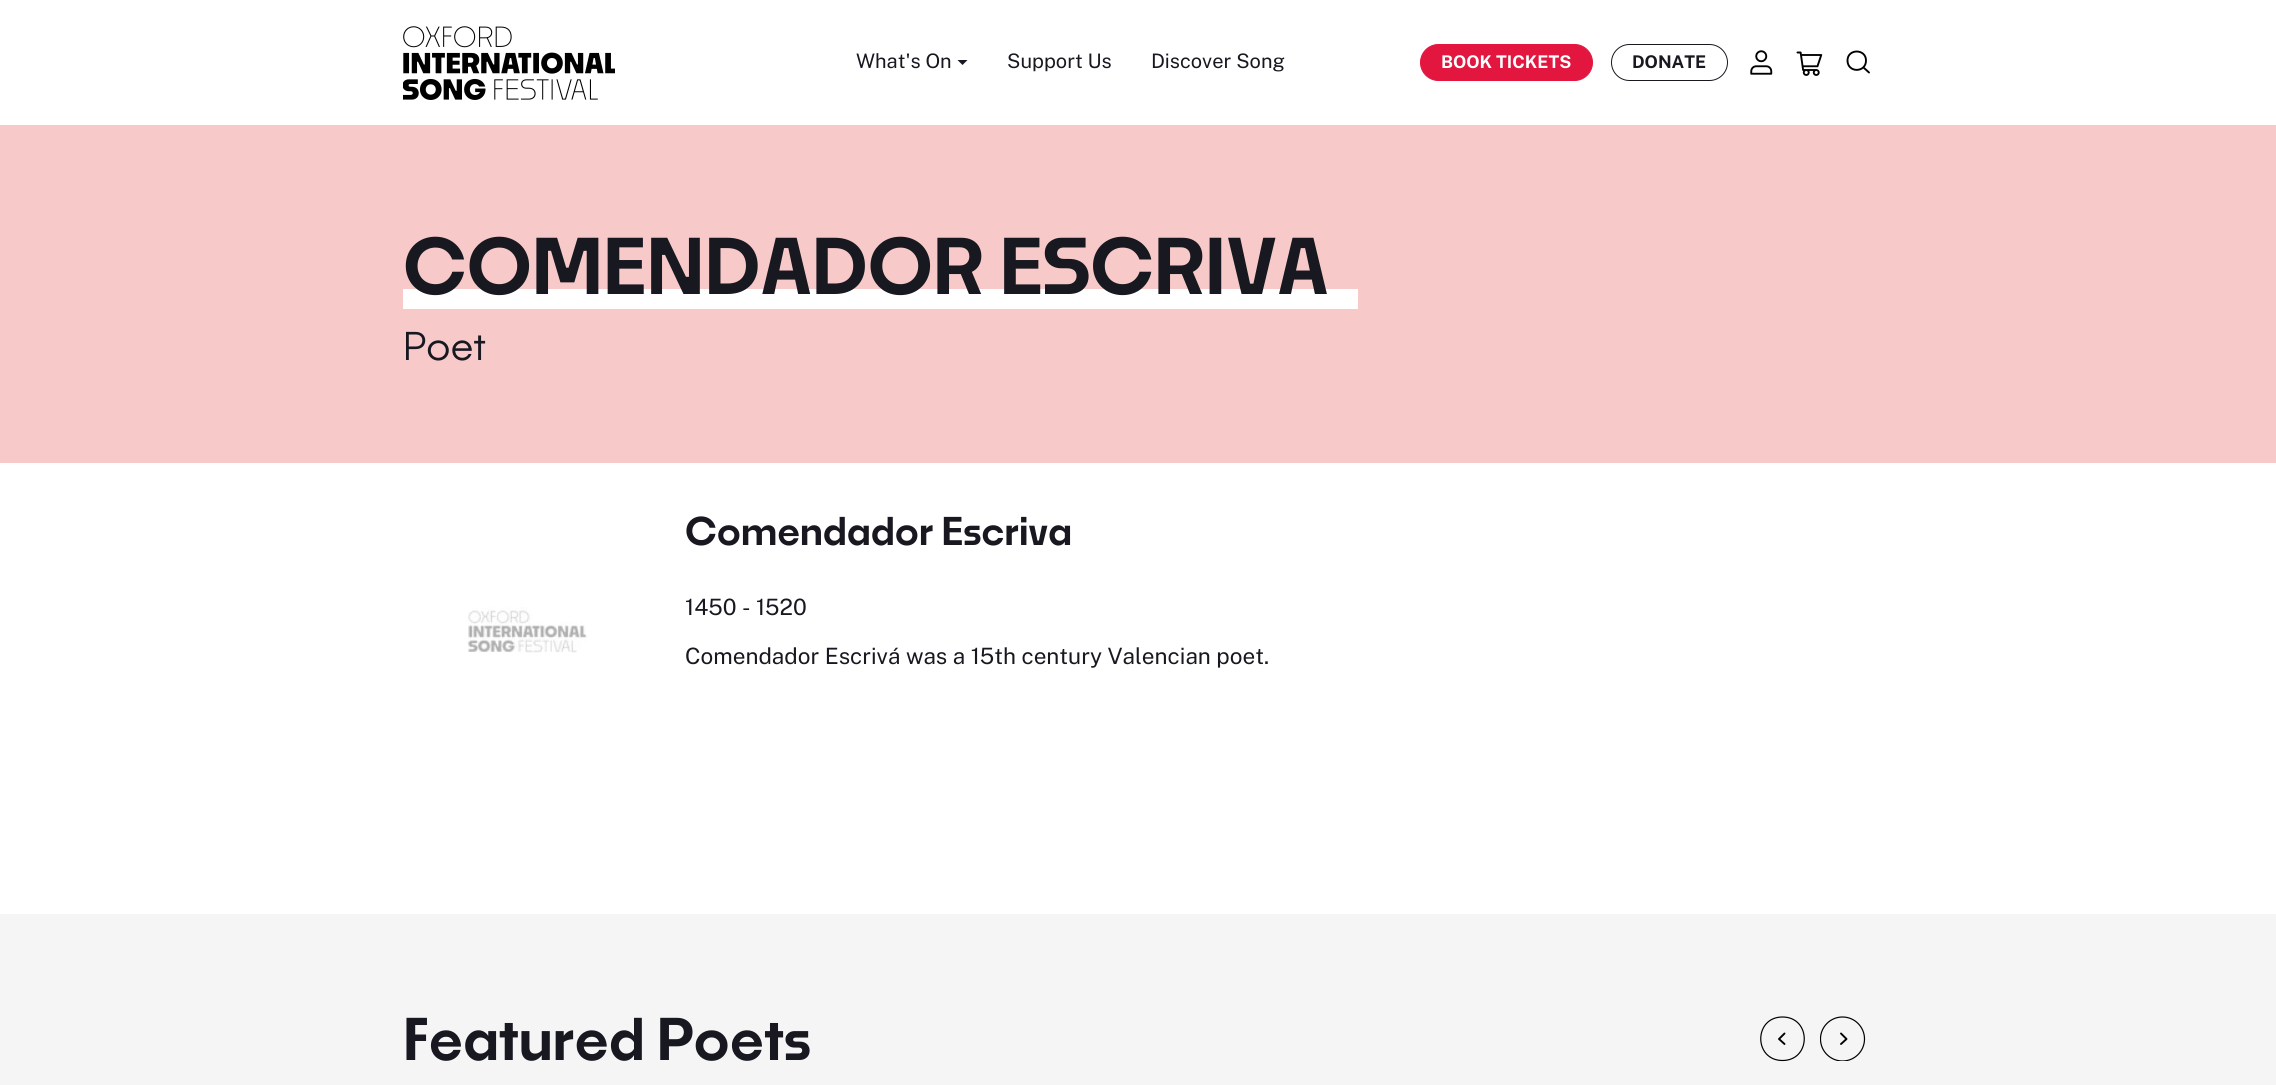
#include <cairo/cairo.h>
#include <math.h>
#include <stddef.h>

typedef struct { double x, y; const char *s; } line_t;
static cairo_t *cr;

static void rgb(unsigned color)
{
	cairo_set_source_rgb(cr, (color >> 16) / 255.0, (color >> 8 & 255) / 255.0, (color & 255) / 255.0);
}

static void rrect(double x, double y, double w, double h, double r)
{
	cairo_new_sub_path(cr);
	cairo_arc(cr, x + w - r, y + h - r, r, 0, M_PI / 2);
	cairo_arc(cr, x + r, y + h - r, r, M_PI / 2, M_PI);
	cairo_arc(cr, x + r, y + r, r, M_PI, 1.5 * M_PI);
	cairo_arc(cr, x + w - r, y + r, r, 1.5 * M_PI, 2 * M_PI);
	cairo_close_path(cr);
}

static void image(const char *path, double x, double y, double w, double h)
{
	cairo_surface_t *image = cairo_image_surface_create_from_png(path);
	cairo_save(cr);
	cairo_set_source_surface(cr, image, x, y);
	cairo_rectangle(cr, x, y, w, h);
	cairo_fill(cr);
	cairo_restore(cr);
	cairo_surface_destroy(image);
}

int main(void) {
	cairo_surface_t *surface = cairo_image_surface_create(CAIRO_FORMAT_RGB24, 2276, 1085);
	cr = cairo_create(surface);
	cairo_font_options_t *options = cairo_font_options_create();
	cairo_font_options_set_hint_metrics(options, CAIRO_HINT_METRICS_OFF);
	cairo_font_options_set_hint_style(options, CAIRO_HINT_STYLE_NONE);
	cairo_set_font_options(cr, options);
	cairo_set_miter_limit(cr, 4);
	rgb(0xffffff);
	cairo_paint(cr);
	image("img/1.png", 403, 26, 212, 74);
	rgb(0x181821);
	cairo_new_path(cr);
	cairo_move_to(cr, 957.5, 60);
	cairo_line_to(cr, 967.5, 60);
	cairo_line_to(cr, 962.5, 65);
	cairo_close_path(cr);
	cairo_fill(cr);
	rgb(0xe3163f);
	rrect(1420.5, 44.5, 172, 36, 18);
	cairo_fill_preserve(cr);
	cairo_set_line_width(cr, 1);
	cairo_stroke(cr);
	rrect(1611.5, 44.5, 116, 36, 18);
	rgb(0x181821);
	cairo_stroke(cr);
	image("img/2.png", 1750, 50, 23, 25);
	image("img/3.png", 1796, 51, 27, 25);
	cairo_new_path(cr);
	cairo_move_to(cr, 1869, 72.5);
	cairo_line_to(cr, 1863.5, 67.5);
	cairo_move_to(cr, 1866, 60.5);
	cairo_curve_to(cr, 1866, 48.5, 1847.5, 48.5, 1847.5, 60.5);
	cairo_curve_to(cr, 1847.5, 73, 1866, 73, 1866, 60.5);
	cairo_close_path(cr);
	rgb(0x000000);
	cairo_set_line_width(cr, 1.9);
	cairo_set_line_cap(cr, CAIRO_LINE_CAP_ROUND);
	cairo_set_line_join(cr, CAIRO_LINE_JOIN_ROUND);
	cairo_stroke(cr);
	rgb(0xf7c9c8);
	cairo_rectangle(cr, 0, 125, 2276, 338);
	cairo_fill(cr);
	rgb(0xffffff);
	cairo_rectangle(cr, 403, 289, 955, 20);
	cairo_fill(cr);
	image("img/4.png", 467, 607, 120, 46);
	rgb(0xf5f5f5);
	cairo_rectangle(cr, 0, 914, 2276, 171);
	cairo_fill(cr);
	cairo_new_path(cr);
	cairo_move_to(cr, 1782.5, 1060.5);
	cairo_curve_to(cr, 1753.5, 1060.5, 1753.5, 1017, 1782.5, 1017);
	cairo_curve_to(cr, 1811.5, 1017, 1811.5, 1060.5, 1782.5, 1060.5);
	cairo_close_path(cr);
	rgb(0x000000);
	cairo_set_line_width(cr, 1.2);
	cairo_set_line_cap(cr, CAIRO_LINE_CAP_BUTT);
	cairo_set_line_join(cr, CAIRO_LINE_JOIN_MITER);
	cairo_stroke(cr);
	cairo_new_path(cr);
	cairo_move_to(cr, 1784.5, 1033.5);
	cairo_line_to(cr, 1779, 1039);
	cairo_line_to(cr, 1784.5, 1044);
	cairo_set_line_width(cr, 1.9);
	cairo_set_line_cap(cr, CAIRO_LINE_CAP_ROUND);
	cairo_set_line_join(cr, CAIRO_LINE_JOIN_ROUND);
	cairo_stroke(cr);
	cairo_save(cr);
	cairo_rectangle(cr, 1820, 1016, 46, 45);
	cairo_clip(cr);
	cairo_arc(cr, 1842.5, 1039, 22, 0, 2 * M_PI);
	cairo_set_line_width(cr, 1.2);
	cairo_set_line_cap(cr, CAIRO_LINE_CAP_BUTT);
	cairo_set_line_join(cr, CAIRO_LINE_JOIN_MITER);
	cairo_stroke(cr);
	cairo_restore(cr);
	cairo_new_path(cr);
	cairo_move_to(cr, 1841, 1044);
	cairo_line_to(cr, 1846.5, 1039);
	cairo_line_to(cr, 1841, 1033.5);
	cairo_stroke(cr);
	cairo_select_font_face(cr, "Public Sans", CAIRO_FONT_SLANT_NORMAL, CAIRO_FONT_WEIGHT_NORMAL);
	cairo_set_font_size(cr, 20);
	rgb(0x181821);
	{
		static const line_t items[] = {
			{856, 68, "What's On"},
			{1007, 68, "Support Us"},
			{1151, 68, "Discover Song"},
		};
		for (size_t i = 0; i < sizeof items / sizeof *items; i++) {
			cairo_move_to(cr, items[i].x, items[i].y);
			cairo_show_text(cr, items[i].s);
		}
	}
	cairo_select_font_face(cr, "Public Sans", CAIRO_FONT_SLANT_NORMAL, CAIRO_FONT_WEIGHT_BOLD);
	cairo_set_font_size(cr, 17.5);
	rgb(0xffffff);
	cairo_move_to(cr, 1441, 68);
	cairo_show_text(cr, "BOOK TICKETS");
	rgb(0x181821);
	cairo_move_to(cr, 1632, 68);
	cairo_show_text(cr, "DONATE");
	cairo_select_font_face(cr, "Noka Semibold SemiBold", CAIRO_FONT_SLANT_NORMAL, CAIRO_FONT_WEIGHT_NORMAL);
	cairo_set_font_size(cr, 75);
	cairo_move_to(cr, 403, 294);
	cairo_show_text(cr, "COMENDADOR ESCRIVA");
	cairo_select_font_face(cr, "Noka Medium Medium", CAIRO_FONT_SLANT_NORMAL, CAIRO_FONT_WEIGHT_NORMAL);
	cairo_set_font_size(cr, 37.5);
	cairo_move_to(cr, 403, 360);
	cairo_show_text(cr, "Poet");
	cairo_select_font_face(cr, "Noka Semibold SemiBold", CAIRO_FONT_SLANT_NORMAL, CAIRO_FONT_WEIGHT_NORMAL);
	cairo_move_to(cr, 685, 545);
	cairo_show_text(cr, "Comendador Escriva");
	cairo_select_font_face(cr, "Public Sans", CAIRO_FONT_SLANT_NORMAL, CAIRO_FONT_WEIGHT_NORMAL);
	cairo_set_font_size(cr, 22.5);
	cairo_move_to(cr, 685, 615);
	cairo_show_text(cr, "1450 - 1520");
	cairo_move_to(cr, 685, 664);
	cairo_show_text(cr, "Comendador Escrivá was a 15th century Valencian poet.");
	cairo_select_font_face(cr, "Noka Semibold SemiBold", CAIRO_FONT_SLANT_NORMAL, CAIRO_FONT_WEIGHT_NORMAL);
	cairo_set_font_size(cr, 56.25);
	cairo_move_to(cr, 403, 1060);
	cairo_show_text(cr, "Featured Poets");
	cairo_surface_write_to_png(surface, "page.png");
	cairo_font_options_destroy(options);
	cairo_destroy(cr);
	cairo_surface_destroy(surface);
	return 0;
}
